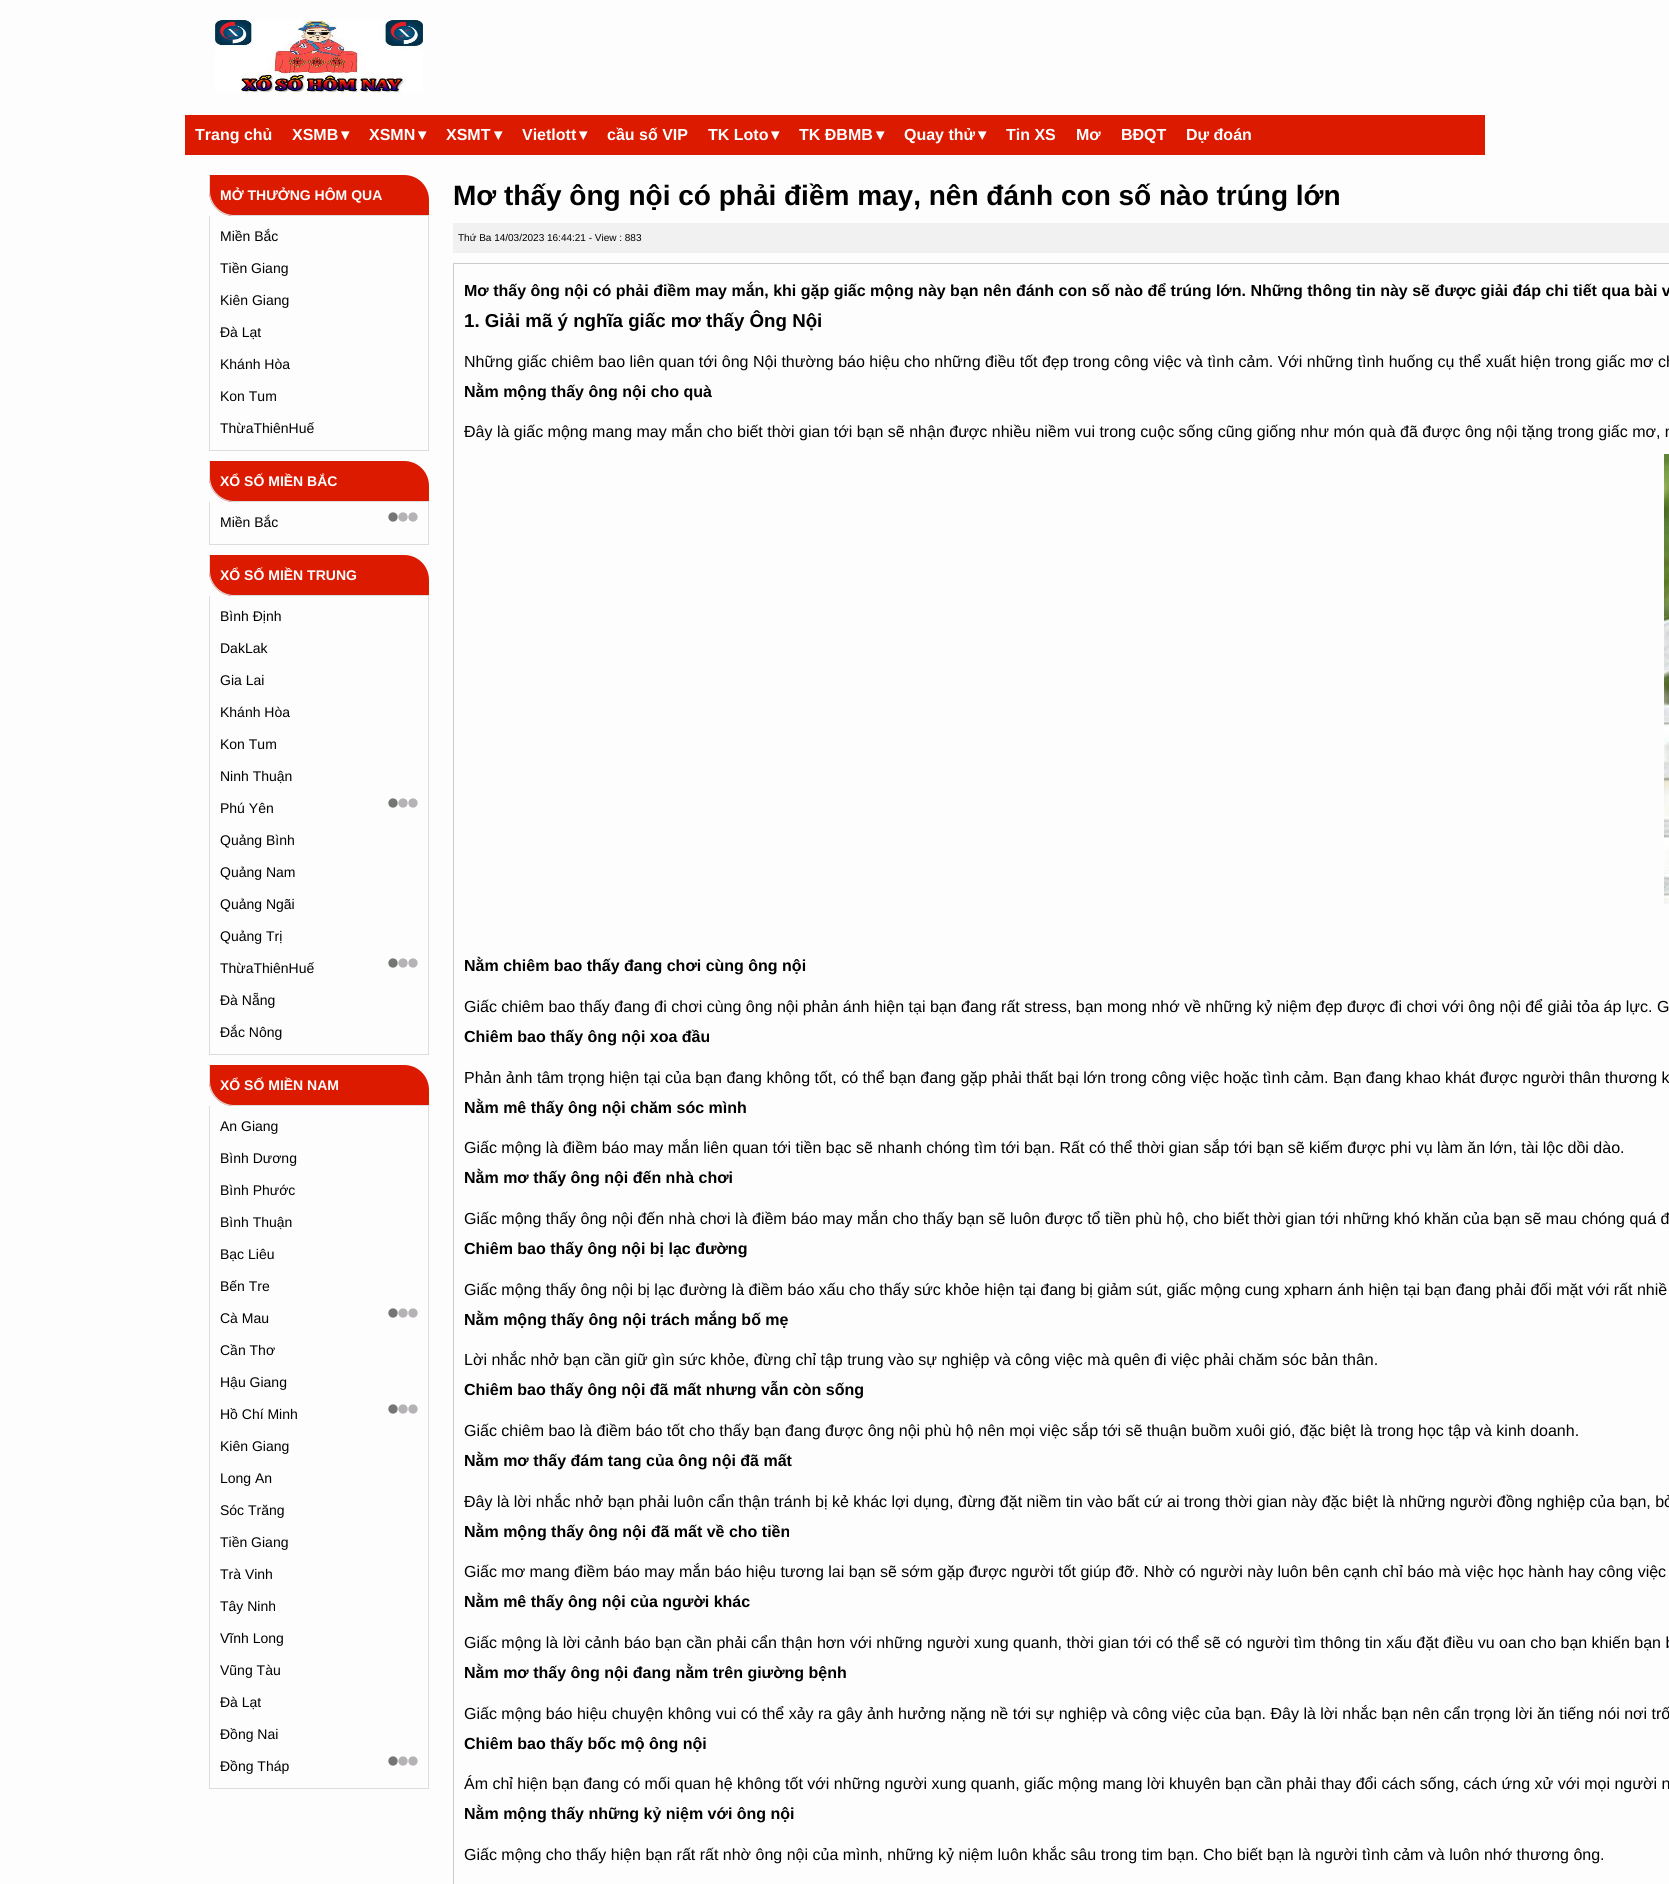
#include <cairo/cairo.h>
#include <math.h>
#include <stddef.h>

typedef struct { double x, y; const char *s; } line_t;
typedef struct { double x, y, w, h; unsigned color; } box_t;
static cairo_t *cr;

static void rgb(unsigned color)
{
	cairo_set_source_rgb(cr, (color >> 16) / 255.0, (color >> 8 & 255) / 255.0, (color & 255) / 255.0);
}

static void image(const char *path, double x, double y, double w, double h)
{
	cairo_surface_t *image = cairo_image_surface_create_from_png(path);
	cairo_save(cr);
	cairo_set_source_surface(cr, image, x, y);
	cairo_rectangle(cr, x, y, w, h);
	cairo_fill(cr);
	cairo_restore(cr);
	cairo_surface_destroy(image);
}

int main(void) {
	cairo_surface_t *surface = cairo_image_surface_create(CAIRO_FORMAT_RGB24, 1669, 1884);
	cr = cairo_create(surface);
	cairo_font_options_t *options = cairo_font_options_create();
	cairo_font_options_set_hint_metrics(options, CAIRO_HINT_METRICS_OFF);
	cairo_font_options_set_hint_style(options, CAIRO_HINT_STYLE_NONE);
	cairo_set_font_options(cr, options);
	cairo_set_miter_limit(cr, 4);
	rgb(0xfdfdfd);
	cairo_paint(cr);
	image("img/1.png", 215, 20, 208, 73);
	rgb(0xdc1a00);
	cairo_rectangle(cr, 185, 115, 1300, 40);
	cairo_fill(cr);
	cairo_new_path(cr);
	cairo_move_to(cr, 209, 175);
	cairo_line_to(cr, 404, 175);
	cairo_curve_to(cr, 418, 175, 429, 186, 429, 200);
	cairo_line_to(cr, 429, 216);
	cairo_line_to(cr, 234, 216);
	cairo_curve_to(cr, 220, 216, 209, 205, 209, 191);
	cairo_close_path(cr);
	cairo_fill(cr);
	rgb(0xdddddd);
	cairo_set_fill_rule(cr, CAIRO_FILL_RULE_EVEN_ODD);
	cairo_new_path(cr);
	cairo_move_to(cr, 209, 175);
	cairo_line_to(cr, 404, 175);
	cairo_curve_to(cr, 418, 175, 429, 186, 429, 200);
	cairo_line_to(cr, 429, 216);
	cairo_line_to(cr, 234, 216);
	cairo_curve_to(cr, 220, 216, 209, 205, 209, 191);
	cairo_close_path(cr);
	cairo_move_to(cr, 210, 175);
	cairo_line_to(cr, 404, 175);
	cairo_curve_to(cr, 418, 175, 429, 186, 429, 200);
	cairo_line_to(cr, 429, 215);
	cairo_line_to(cr, 234, 215);
	cairo_curve_to(cr, 221, 215, 210, 204, 210, 191);
	cairo_close_path(cr);
	cairo_fill(cr);
	{
		static const box_t items[] = {
			{428, 216, 1, 235, 0xdddddd},
			{209, 450, 220, 1, 0xdddddd},
			{209, 216, 1, 235, 0xdddddd},
		};
		for (size_t i = 0; i < sizeof items / sizeof *items; i++) {
			rgb(items[i].color);
			cairo_rectangle(cr, items[i].x, items[i].y, items[i].w, items[i].h);
			cairo_fill(cr);
		}
	}
	rgb(0xdc1a00);
	cairo_new_path(cr);
	cairo_move_to(cr, 209, 461);
	cairo_line_to(cr, 404, 461);
	cairo_curve_to(cr, 418, 461, 429, 472, 429, 486);
	cairo_line_to(cr, 429, 502);
	cairo_line_to(cr, 234, 502);
	cairo_curve_to(cr, 220, 502, 209, 491, 209, 477);
	cairo_close_path(cr);
	cairo_fill(cr);
	rgb(0xdddddd);
	cairo_new_path(cr);
	cairo_move_to(cr, 209, 461);
	cairo_line_to(cr, 404, 461);
	cairo_curve_to(cr, 418, 461, 429, 472, 429, 486);
	cairo_line_to(cr, 429, 502);
	cairo_line_to(cr, 234, 502);
	cairo_curve_to(cr, 220, 502, 209, 491, 209, 477);
	cairo_close_path(cr);
	cairo_move_to(cr, 210, 461);
	cairo_line_to(cr, 404, 461);
	cairo_curve_to(cr, 418, 461, 429, 472, 429, 486);
	cairo_line_to(cr, 429, 501);
	cairo_line_to(cr, 234, 501);
	cairo_curve_to(cr, 221, 501, 210, 490, 210, 477);
	cairo_close_path(cr);
	cairo_fill(cr);
	{
		static const box_t items[] = {
			{428, 502, 1, 43, 0xdddddd},
			{209, 544, 220, 1, 0xdddddd},
			{209, 502, 1, 43, 0xdddddd},
		};
		for (size_t i = 0; i < sizeof items / sizeof *items; i++) {
			rgb(items[i].color);
			cairo_rectangle(cr, items[i].x, items[i].y, items[i].w, items[i].h);
			cairo_fill(cr);
		}
	}
	image("img/2.png", 388, 512, 30, 10);
	rgb(0xdc1a00);
	cairo_new_path(cr);
	cairo_move_to(cr, 209, 555);
	cairo_line_to(cr, 404, 555);
	cairo_curve_to(cr, 418, 555, 429, 566, 429, 580);
	cairo_line_to(cr, 429, 596);
	cairo_line_to(cr, 234, 596);
	cairo_curve_to(cr, 220, 596, 209, 585, 209, 571);
	cairo_close_path(cr);
	cairo_fill(cr);
	rgb(0xdddddd);
	cairo_new_path(cr);
	cairo_move_to(cr, 209, 555);
	cairo_line_to(cr, 404, 555);
	cairo_curve_to(cr, 418, 555, 429, 566, 429, 580);
	cairo_line_to(cr, 429, 596);
	cairo_line_to(cr, 234, 596);
	cairo_curve_to(cr, 220, 596, 209, 585, 209, 571);
	cairo_close_path(cr);
	cairo_move_to(cr, 210, 555);
	cairo_line_to(cr, 404, 555);
	cairo_curve_to(cr, 418, 555, 429, 566, 429, 580);
	cairo_line_to(cr, 429, 595);
	cairo_line_to(cr, 234, 595);
	cairo_curve_to(cr, 221, 595, 210, 584, 210, 571);
	cairo_close_path(cr);
	cairo_fill(cr);
	{
		static const box_t items[] = {
			{428, 596, 1, 459, 0xdddddd},
			{209, 1054, 220, 1, 0xdddddd},
			{209, 596, 1, 459, 0xdddddd},
		};
		for (size_t i = 0; i < sizeof items / sizeof *items; i++) {
			rgb(items[i].color);
			cairo_rectangle(cr, items[i].x, items[i].y, items[i].w, items[i].h);
			cairo_fill(cr);
		}
	}
	image("img/2.png", 388, 798, 30, 10);
	image("img/2.png", 388, 958, 30, 10);
	rgb(0xdc1a00);
	cairo_new_path(cr);
	cairo_move_to(cr, 209, 1065);
	cairo_line_to(cr, 404, 1065);
	cairo_curve_to(cr, 418, 1065, 429, 1076, 429, 1090);
	cairo_line_to(cr, 429, 1106);
	cairo_line_to(cr, 234, 1106);
	cairo_curve_to(cr, 220, 1106, 209, 1095, 209, 1081);
	cairo_close_path(cr);
	cairo_fill(cr);
	rgb(0xdddddd);
	cairo_new_path(cr);
	cairo_move_to(cr, 209, 1065);
	cairo_line_to(cr, 404, 1065);
	cairo_curve_to(cr, 418, 1065, 429, 1076, 429, 1090);
	cairo_line_to(cr, 429, 1106);
	cairo_line_to(cr, 234, 1106);
	cairo_curve_to(cr, 220, 1106, 209, 1095, 209, 1081);
	cairo_close_path(cr);
	cairo_move_to(cr, 210, 1065);
	cairo_line_to(cr, 404, 1065);
	cairo_curve_to(cr, 418, 1065, 429, 1076, 429, 1090);
	cairo_line_to(cr, 429, 1105);
	cairo_line_to(cr, 234, 1105);
	cairo_curve_to(cr, 221, 1105, 210, 1094, 210, 1081);
	cairo_close_path(cr);
	cairo_fill(cr);
	{
		static const box_t items[] = {
			{428, 1106, 1, 683, 0xdddddd},
			{209, 1788, 220, 1, 0xdddddd},
			{209, 1106, 1, 683, 0xdddddd},
		};
		for (size_t i = 0; i < sizeof items / sizeof *items; i++) {
			rgb(items[i].color);
			cairo_rectangle(cr, items[i].x, items[i].y, items[i].w, items[i].h);
			cairo_fill(cr);
		}
	}
	image("img/2.png", 388, 1308, 30, 10);
	image("img/2.png", 388, 1404, 30, 10);
	image("img/2.png", 388, 1756, 30, 10);
	rgb(0xf1f1f1);
	cairo_rectangle(cr, 453, 223, 1216, 30);
	cairo_fill(cr);
	cairo_rectangle(cr, 453.5, 263.5, 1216, 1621);
	rgb(0xcccccc);
	cairo_set_line_width(cr, 1);
	cairo_stroke(cr);
	image("img/3.png", 1664, 454, 5, 450);
	cairo_select_font_face(cr, "Liberation Sans", CAIRO_FONT_SLANT_NORMAL, CAIRO_FONT_WEIGHT_BOLD);
	cairo_set_font_size(cr, 16);
	rgb(0xffffff);
	cairo_move_to(cr, 195, 140);
	cairo_show_text(cr, "Trang chủ");
	cairo_move_to(cr, 292, 140);
	cairo_show_text(cr, "XSMB");
	cairo_select_font_face(cr, "DejaVu Sans", CAIRO_FONT_SLANT_NORMAL, CAIRO_FONT_WEIGHT_BOLD);
	cairo_move_to(cr, 341, 140);
	cairo_show_text(cr, "▾");
	cairo_select_font_face(cr, "Liberation Sans", CAIRO_FONT_SLANT_NORMAL, CAIRO_FONT_WEIGHT_BOLD);
	cairo_move_to(cr, 369, 140);
	cairo_show_text(cr, "XSMN");
	cairo_select_font_face(cr, "DejaVu Sans", CAIRO_FONT_SLANT_NORMAL, CAIRO_FONT_WEIGHT_BOLD);
	cairo_move_to(cr, 418, 140);
	cairo_show_text(cr, "▾");
	cairo_select_font_face(cr, "Liberation Sans", CAIRO_FONT_SLANT_NORMAL, CAIRO_FONT_WEIGHT_BOLD);
	cairo_move_to(cr, 446, 140);
	cairo_show_text(cr, "XSMT");
	cairo_select_font_face(cr, "DejaVu Sans", CAIRO_FONT_SLANT_NORMAL, CAIRO_FONT_WEIGHT_BOLD);
	cairo_move_to(cr, 494, 140);
	cairo_show_text(cr, "▾");
	cairo_select_font_face(cr, "Liberation Sans", CAIRO_FONT_SLANT_NORMAL, CAIRO_FONT_WEIGHT_BOLD);
	cairo_move_to(cr, 522, 140);
	cairo_show_text(cr, "Vietlott");
	cairo_select_font_face(cr, "DejaVu Sans", CAIRO_FONT_SLANT_NORMAL, CAIRO_FONT_WEIGHT_BOLD);
	cairo_move_to(cr, 579, 140);
	cairo_show_text(cr, "▾");
	cairo_select_font_face(cr, "Liberation Sans", CAIRO_FONT_SLANT_NORMAL, CAIRO_FONT_WEIGHT_BOLD);
	cairo_move_to(cr, 607, 140);
	cairo_show_text(cr, "cầu số VIP");
	cairo_move_to(cr, 708, 140);
	cairo_show_text(cr, "TK Loto");
	cairo_select_font_face(cr, "DejaVu Sans", CAIRO_FONT_SLANT_NORMAL, CAIRO_FONT_WEIGHT_BOLD);
	cairo_move_to(cr, 771, 140);
	cairo_show_text(cr, "▾");
	cairo_select_font_face(cr, "Liberation Sans", CAIRO_FONT_SLANT_NORMAL, CAIRO_FONT_WEIGHT_BOLD);
	cairo_move_to(cr, 799, 140);
	cairo_show_text(cr, "TK ĐBMB");
	cairo_select_font_face(cr, "DejaVu Sans", CAIRO_FONT_SLANT_NORMAL, CAIRO_FONT_WEIGHT_BOLD);
	cairo_move_to(cr, 876, 140);
	cairo_show_text(cr, "▾");
	cairo_select_font_face(cr, "Liberation Sans", CAIRO_FONT_SLANT_NORMAL, CAIRO_FONT_WEIGHT_BOLD);
	cairo_move_to(cr, 904, 140);
	cairo_show_text(cr, "Quay thử");
	cairo_select_font_face(cr, "DejaVu Sans", CAIRO_FONT_SLANT_NORMAL, CAIRO_FONT_WEIGHT_BOLD);
	cairo_move_to(cr, 978, 140);
	cairo_show_text(cr, "▾");
	cairo_select_font_face(cr, "Liberation Sans", CAIRO_FONT_SLANT_NORMAL, CAIRO_FONT_WEIGHT_BOLD);
	{
		static const line_t items[] = {
			{1006, 140, "Tin XS"},
			{1076, 140, "Mơ"},
			{1121, 140, "BĐQT"},
			{1186, 140, "Dự đoán"},
		};
		for (size_t i = 0; i < sizeof items / sizeof *items; i++) {
			cairo_move_to(cr, items[i].x, items[i].y);
			cairo_show_text(cr, items[i].s);
		}
	}
	cairo_set_font_size(cr, 14);
	cairo_move_to(cr, 220, 200);
	cairo_show_text(cr, "MỞ THƯỞNG HÔM QUA");
	cairo_select_font_face(cr, "Liberation Sans", CAIRO_FONT_SLANT_NORMAL, CAIRO_FONT_WEIGHT_NORMAL);
	rgb(0x000000);
	{
		static const line_t items[] = {
			{220, 241, "Miền Bắc"},
			{220, 273, "Tiền Giang"},
			{220, 305, "Kiên Giang"},
			{220, 337, "Đà Lạt"},
			{220, 369, "Khánh Hòa"},
			{220, 401, "Kon Tum"},
			{220, 433, "ThừaThiênHuế"},
		};
		for (size_t i = 0; i < sizeof items / sizeof *items; i++) {
			cairo_move_to(cr, items[i].x, items[i].y);
			cairo_show_text(cr, items[i].s);
		}
	}
	cairo_select_font_face(cr, "Liberation Sans", CAIRO_FONT_SLANT_NORMAL, CAIRO_FONT_WEIGHT_BOLD);
	rgb(0xffffff);
	cairo_move_to(cr, 220, 486);
	cairo_show_text(cr, "XỔ SỐ MIỀN BẮC");
	cairo_select_font_face(cr, "Liberation Sans", CAIRO_FONT_SLANT_NORMAL, CAIRO_FONT_WEIGHT_NORMAL);
	rgb(0x000000);
	cairo_move_to(cr, 220, 527);
	cairo_show_text(cr, "Miền Bắc");
	cairo_select_font_face(cr, "Liberation Sans", CAIRO_FONT_SLANT_NORMAL, CAIRO_FONT_WEIGHT_BOLD);
	rgb(0xffffff);
	cairo_move_to(cr, 220, 580);
	cairo_show_text(cr, "XỔ SỐ MIỀN TRUNG");
	cairo_select_font_face(cr, "Liberation Sans", CAIRO_FONT_SLANT_NORMAL, CAIRO_FONT_WEIGHT_NORMAL);
	rgb(0x000000);
	{
		static const line_t items[] = {
			{220, 621, "Bình Định"},
			{220, 653, "DakLak"},
			{220, 685, "Gia Lai"},
			{220, 717, "Khánh Hòa"},
			{220, 749, "Kon Tum"},
			{220, 781, "Ninh Thuận"},
			{220, 813, "Phú Yên"},
			{220, 845, "Quảng Bình"},
			{220, 877, "Quảng Nam"},
			{220, 909, "Quảng Ngãi"},
			{220, 941, "Quảng Trị"},
			{220, 973, "ThừaThiênHuế"},
			{220, 1005, "Đà Nẵng"},
			{220, 1037, "Đắc Nông"},
		};
		for (size_t i = 0; i < sizeof items / sizeof *items; i++) {
			cairo_move_to(cr, items[i].x, items[i].y);
			cairo_show_text(cr, items[i].s);
		}
	}
	cairo_select_font_face(cr, "Liberation Sans", CAIRO_FONT_SLANT_NORMAL, CAIRO_FONT_WEIGHT_BOLD);
	rgb(0xffffff);
	cairo_move_to(cr, 220, 1090);
	cairo_show_text(cr, "XỔ SỐ MIỀN NAM");
	cairo_select_font_face(cr, "Liberation Sans", CAIRO_FONT_SLANT_NORMAL, CAIRO_FONT_WEIGHT_NORMAL);
	rgb(0x000000);
	{
		static const line_t items[] = {
			{220, 1131, "An Giang"},
			{220, 1163, "Bình Dương"},
			{220, 1195, "Bình Phước"},
			{220, 1227, "Bình Thuận"},
			{220, 1259, "Bạc Liêu"},
			{220, 1291, "Bến Tre"},
			{220, 1323, "Cà Mau"},
			{220, 1355, "Cần Thơ"},
			{220, 1387, "Hậu Giang"},
			{220, 1419, "Hồ Chí Minh"},
			{220, 1451, "Kiên Giang"},
			{220, 1483, "Long An"},
			{220, 1515, "Sóc Trăng"},
			{220, 1547, "Tiền Giang"},
			{220, 1579, "Trà Vinh"},
			{220, 1611, "Tây Ninh"},
			{220, 1643, "Vĩnh Long"},
			{220, 1675, "Vũng Tàu"},
			{220, 1707, "Đà Lạt"},
			{220, 1739, "Đồng Nai"},
			{220, 1771, "Đồng Tháp"},
		};
		for (size_t i = 0; i < sizeof items / sizeof *items; i++) {
			cairo_move_to(cr, items[i].x, items[i].y);
			cairo_show_text(cr, items[i].s);
		}
	}
	cairo_select_font_face(cr, "Liberation Sans", CAIRO_FONT_SLANT_NORMAL, CAIRO_FONT_WEIGHT_BOLD);
	cairo_set_font_size(cr, 28);
	cairo_move_to(cr, 453, 205);
	cairo_show_text(cr, "Mơ thấy ông nội có phải điềm may, nên đánh con số nào trúng lớn");
	cairo_select_font_face(cr, "Liberation Sans", CAIRO_FONT_SLANT_NORMAL, CAIRO_FONT_WEIGHT_NORMAL);
	cairo_set_font_size(cr, 10);
	cairo_move_to(cr, 458, 241);
	cairo_show_text(cr, "Thứ Ba 14/03/2023 16:44:21 - View : 883");
	cairo_select_font_face(cr, "Liberation Sans", CAIRO_FONT_SLANT_NORMAL, CAIRO_FONT_WEIGHT_BOLD);
	cairo_set_font_size(cr, 16);
	cairo_move_to(cr, 464, 296);
	cairo_show_text(cr, "Mơ thấy ông nội có phải điềm may mắn, khi gặp giấc mộng này bạn nên đánh con số nào để trúng lớn. Những thông tin này sẽ được giải đáp chi tiết qua bài v");
	cairo_set_font_size(cr, 18.7);
	cairo_move_to(cr, 464, 327);
	cairo_show_text(cr, "1. Giải mã ý nghĩa giấc mơ thấy Ông Nội");
	cairo_select_font_face(cr, "Liberation Sans", CAIRO_FONT_SLANT_NORMAL, CAIRO_FONT_WEIGHT_NORMAL);
	cairo_set_font_size(cr, 16);
	cairo_move_to(cr, 464, 367);
	cairo_show_text(cr, "Những giấc chiêm bao liên quan tới ông Nội thường báo hiệu cho những điều tốt đẹp trong công việc và tình cảm. Với những tình huống cụ thể xuất hiện trong giấc mơ ch");
	cairo_select_font_face(cr, "Liberation Sans", CAIRO_FONT_SLANT_NORMAL, CAIRO_FONT_WEIGHT_BOLD);
	cairo_move_to(cr, 464, 397);
	cairo_show_text(cr, "Nằm mộng thấy ông nội cho quà");
	cairo_select_font_face(cr, "Liberation Sans", CAIRO_FONT_SLANT_NORMAL, CAIRO_FONT_WEIGHT_NORMAL);
	cairo_move_to(cr, 464, 437);
	cairo_show_text(cr, "Đây là giấc mộng mang may mắn cho biết thời gian tới bạn sẽ nhận được nhiều niềm vui trong cuộc sống cũng giống như món quà đã được ông nội tặng trong giấc mơ, n");
	cairo_select_font_face(cr, "Liberation Sans", CAIRO_FONT_SLANT_NORMAL, CAIRO_FONT_WEIGHT_BOLD);
	cairo_move_to(cr, 464, 971);
	cairo_show_text(cr, "Nằm chiêm bao thấy đang chơi cùng ông nội");
	cairo_select_font_face(cr, "Liberation Sans", CAIRO_FONT_SLANT_NORMAL, CAIRO_FONT_WEIGHT_NORMAL);
	cairo_move_to(cr, 464, 1012);
	cairo_show_text(cr, "Giấc chiêm bao thấy đang đi chơi cùng ông nội phản ánh hiện tại bạn đang rất stress, bạn mong nhớ về những kỷ niệm đẹp được đi chơi với ông nội để giải tỏa áp lực. G");
	cairo_select_font_face(cr, "Liberation Sans", CAIRO_FONT_SLANT_NORMAL, CAIRO_FONT_WEIGHT_BOLD);
	cairo_move_to(cr, 464, 1042);
	cairo_show_text(cr, "Chiêm bao thấy ông nội xoa đầu");
	cairo_select_font_face(cr, "Liberation Sans", CAIRO_FONT_SLANT_NORMAL, CAIRO_FONT_WEIGHT_NORMAL);
	cairo_move_to(cr, 464, 1083);
	cairo_show_text(cr, "Phản ảnh tâm trọng hiện tại của bạn đang không tốt, có thể bạn đang gặp phải thất bại lớn trong công việc hoặc tình cảm. Bạn đang khao khát được người thân thương k");
	cairo_select_font_face(cr, "Liberation Sans", CAIRO_FONT_SLANT_NORMAL, CAIRO_FONT_WEIGHT_BOLD);
	cairo_move_to(cr, 464, 1113);
	cairo_show_text(cr, "Nằm mê thấy ông nội chăm sóc mình");
	cairo_select_font_face(cr, "Liberation Sans", CAIRO_FONT_SLANT_NORMAL, CAIRO_FONT_WEIGHT_NORMAL);
	cairo_move_to(cr, 464, 1153);
	cairo_show_text(cr, "Giấc mộng là điềm báo may mắn liên quan tới tiền bạc sẽ nhanh chóng tìm tới bạn. Rất có thể thời gian sắp tới bạn sẽ kiếm được phi vụ làm ăn lớn, tài lộc dồi dào.");
	cairo_select_font_face(cr, "Liberation Sans", CAIRO_FONT_SLANT_NORMAL, CAIRO_FONT_WEIGHT_BOLD);
	cairo_move_to(cr, 464, 1183);
	cairo_show_text(cr, "Nằm mơ thấy ông nội đến nhà chơi");
	cairo_select_font_face(cr, "Liberation Sans", CAIRO_FONT_SLANT_NORMAL, CAIRO_FONT_WEIGHT_NORMAL);
	cairo_move_to(cr, 464, 1224);
	cairo_show_text(cr, "Giấc mộng thấy ông nội đến nhà chơi là điềm báo may mắn cho thấy bạn sẽ luôn được tổ tiền phù hộ, cho biết thời gian tới những khó khăn của bạn sẽ mau chóng quá đ");
	cairo_select_font_face(cr, "Liberation Sans", CAIRO_FONT_SLANT_NORMAL, CAIRO_FONT_WEIGHT_BOLD);
	cairo_move_to(cr, 464, 1254);
	cairo_show_text(cr, "Chiêm bao thấy ông nội bị lạc đường");
	cairo_select_font_face(cr, "Liberation Sans", CAIRO_FONT_SLANT_NORMAL, CAIRO_FONT_WEIGHT_NORMAL);
	cairo_move_to(cr, 464, 1295);
	cairo_show_text(cr, "Giấc mộng thấy ông nội bị lạc đường là điềm báo xấu cho thấy sức khỏe hiện tại đang bị giảm sút, giấc mộng cung xpharn ánh hiện tại bạn đang phải đối mặt với rất nhiề");
	cairo_select_font_face(cr, "Liberation Sans", CAIRO_FONT_SLANT_NORMAL, CAIRO_FONT_WEIGHT_BOLD);
	cairo_move_to(cr, 464, 1325);
	cairo_show_text(cr, "Nằm mộng thấy ông nội trách mắng bố mẹ");
	cairo_select_font_face(cr, "Liberation Sans", CAIRO_FONT_SLANT_NORMAL, CAIRO_FONT_WEIGHT_NORMAL);
	cairo_move_to(cr, 464, 1365);
	cairo_show_text(cr, "Lời nhắc nhở bạn cần giữ gìn sức khỏe, đừng chỉ tập trung vào sự nghiệp và công việc mà quên đi việc phải chăm sóc bản thân.");
	cairo_select_font_face(cr, "Liberation Sans", CAIRO_FONT_SLANT_NORMAL, CAIRO_FONT_WEIGHT_BOLD);
	cairo_move_to(cr, 464, 1395);
	cairo_show_text(cr, "Chiêm bao thấy ông nội đã mất nhưng vẫn còn sống");
	cairo_select_font_face(cr, "Liberation Sans", CAIRO_FONT_SLANT_NORMAL, CAIRO_FONT_WEIGHT_NORMAL);
	cairo_move_to(cr, 464, 1436);
	cairo_show_text(cr, "Giấc chiêm bao là điềm báo tốt cho thấy bạn đang được ông nội phù hộ nên mọi việc sắp tới sẽ thuận buồm xuôi gió, đặc biệt là trong học tập và kinh doanh.");
	cairo_select_font_face(cr, "Liberation Sans", CAIRO_FONT_SLANT_NORMAL, CAIRO_FONT_WEIGHT_BOLD);
	cairo_move_to(cr, 464, 1466);
	cairo_show_text(cr, "Nằm mơ thấy đám tang của ông nội đã mất");
	cairo_select_font_face(cr, "Liberation Sans", CAIRO_FONT_SLANT_NORMAL, CAIRO_FONT_WEIGHT_NORMAL);
	cairo_move_to(cr, 464, 1507);
	cairo_show_text(cr, "Đây là lời nhắc nhở bạn phải luôn cẩn thận tránh bị kẻ khác lợi dụng, đừng đặt niềm tin vào bất cứ ai trong thời gian này đặc biệt là những người đồng nghiệp của bạn, bở");
	cairo_select_font_face(cr, "Liberation Sans", CAIRO_FONT_SLANT_NORMAL, CAIRO_FONT_WEIGHT_BOLD);
	cairo_move_to(cr, 464, 1537);
	cairo_show_text(cr, "Nằm mộng thấy ông nội đã mất về cho tiền");
	cairo_select_font_face(cr, "Liberation Sans", CAIRO_FONT_SLANT_NORMAL, CAIRO_FONT_WEIGHT_NORMAL);
	cairo_move_to(cr, 464, 1577);
	cairo_show_text(cr, "Giấc mơ mang điềm báo may mắn báo hiệu tương lai bạn sẽ sớm gặp được người tốt giúp đỡ. Nhờ có người này luôn bên cạnh chỉ báo mà việc học hành hay công việc");
	cairo_select_font_face(cr, "Liberation Sans", CAIRO_FONT_SLANT_NORMAL, CAIRO_FONT_WEIGHT_BOLD);
	cairo_move_to(cr, 464, 1607);
	cairo_show_text(cr, "Nằm mê thấy ông nội của người khác");
	cairo_select_font_face(cr, "Liberation Sans", CAIRO_FONT_SLANT_NORMAL, CAIRO_FONT_WEIGHT_NORMAL);
	cairo_move_to(cr, 464, 1648);
	cairo_show_text(cr, "Giấc mộng là lời cảnh báo bạn cần phải cẩn thận hơn với những người xung quanh, thời gian tới có thể sẽ có người tìm thông tin xấu đặt điều vu oan cho bạn khiến bạn b");
	cairo_select_font_face(cr, "Liberation Sans", CAIRO_FONT_SLANT_NORMAL, CAIRO_FONT_WEIGHT_BOLD);
	cairo_move_to(cr, 464, 1678);
	cairo_show_text(cr, "Nằm mơ thấy ông nội đang nằm trên giường bệnh");
	cairo_select_font_face(cr, "Liberation Sans", CAIRO_FONT_SLANT_NORMAL, CAIRO_FONT_WEIGHT_NORMAL);
	cairo_move_to(cr, 464, 1719);
	cairo_show_text(cr, "Giấc mộng báo hiệu chuyện không vui có thể xảy ra gây ảnh hưởng nặng nề tới sự nghiệp và công việc của bạn. Đây là lời nhắc bạn nên cẩn trọng lời ăn tiếng nói nơi trố");
	cairo_select_font_face(cr, "Liberation Sans", CAIRO_FONT_SLANT_NORMAL, CAIRO_FONT_WEIGHT_BOLD);
	cairo_move_to(cr, 464, 1749);
	cairo_show_text(cr, "Chiêm bao thấy bốc mộ ông nội");
	cairo_select_font_face(cr, "Liberation Sans", CAIRO_FONT_SLANT_NORMAL, CAIRO_FONT_WEIGHT_NORMAL);
	cairo_move_to(cr, 464, 1789);
	cairo_show_text(cr, "Ám chỉ hiện bạn đang có mối quan hệ không tốt với những người xung quanh, giấc mộng mang lời khuyên bạn cần phải thay đổi cách sống, cách ứng xử với mọi người n");
	cairo_select_font_face(cr, "Liberation Sans", CAIRO_FONT_SLANT_NORMAL, CAIRO_FONT_WEIGHT_BOLD);
	cairo_move_to(cr, 464, 1819);
	cairo_show_text(cr, "Nằm mộng thấy những kỷ niệm với ông nội");
	cairo_select_font_face(cr, "Liberation Sans", CAIRO_FONT_SLANT_NORMAL, CAIRO_FONT_WEIGHT_NORMAL);
	cairo_move_to(cr, 464, 1860);
	cairo_show_text(cr, "Giấc mộng cho thấy hiện bạn rất rất nhờ ông nội của mình, những kỷ niệm luôn khắc sâu trong tim bạn. Cho biết bạn là người tình cảm và luôn nhớ thương ông.");
	cairo_surface_write_to_png(surface, "page.png");
	cairo_font_options_destroy(options);
	cairo_destroy(cr);
	cairo_surface_destroy(surface);
	return 0;
}
